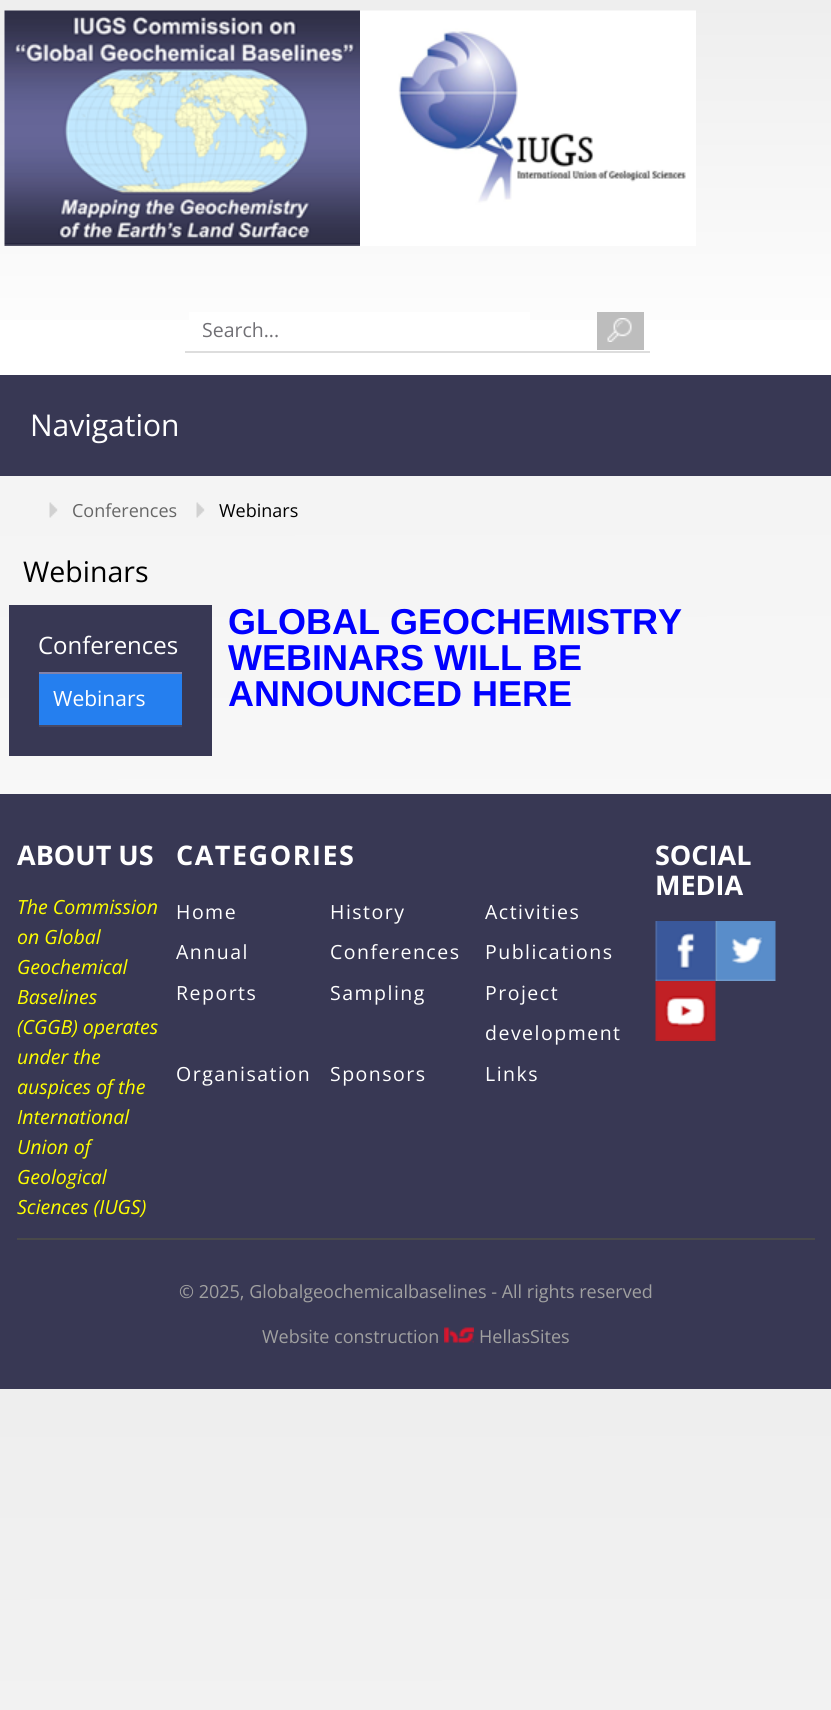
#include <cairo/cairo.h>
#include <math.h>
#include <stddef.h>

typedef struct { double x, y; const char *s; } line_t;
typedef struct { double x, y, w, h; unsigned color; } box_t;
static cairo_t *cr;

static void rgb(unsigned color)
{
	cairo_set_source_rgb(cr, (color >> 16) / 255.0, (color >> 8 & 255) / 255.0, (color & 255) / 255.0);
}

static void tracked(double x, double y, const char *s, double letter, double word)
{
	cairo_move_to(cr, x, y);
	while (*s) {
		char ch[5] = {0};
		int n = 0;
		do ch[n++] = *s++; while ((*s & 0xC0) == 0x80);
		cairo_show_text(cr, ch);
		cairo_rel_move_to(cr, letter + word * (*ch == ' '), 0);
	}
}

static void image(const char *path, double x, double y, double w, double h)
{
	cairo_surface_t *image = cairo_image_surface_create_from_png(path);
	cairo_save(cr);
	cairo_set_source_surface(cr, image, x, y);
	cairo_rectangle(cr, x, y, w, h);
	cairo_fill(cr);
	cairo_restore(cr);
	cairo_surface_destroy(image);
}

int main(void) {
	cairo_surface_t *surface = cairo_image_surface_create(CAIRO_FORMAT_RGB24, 831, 1710);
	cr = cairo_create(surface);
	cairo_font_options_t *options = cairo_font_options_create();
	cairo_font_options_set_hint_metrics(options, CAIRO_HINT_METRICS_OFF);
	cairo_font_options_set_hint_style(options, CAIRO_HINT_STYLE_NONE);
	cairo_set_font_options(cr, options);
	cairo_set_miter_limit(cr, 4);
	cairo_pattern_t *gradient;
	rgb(0xffffff);
	cairo_paint(cr);
	gradient = cairo_pattern_create_linear(415, 0, 416, 1389);
	cairo_pattern_add_color_stop_rgba(gradient, 0, 0.933, 0.933, 0.933, 1);
	cairo_pattern_add_color_stop_rgba(gradient, 1, 1, 1, 1, 1);
	cairo_set_source(cr, gradient);
	cairo_pattern_destroy(gradient);
	cairo_rectangle(cr, 0, 476, 831, 318);
	cairo_fill(cr);
	gradient = cairo_pattern_create_linear(415, 1389, 416, 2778);
	cairo_pattern_add_color_stop_rgba(gradient, 0, 0.933, 0.933, 0.933, 1);
	cairo_pattern_add_color_stop_rgba(gradient, 1, 1, 1, 1, 1);
	cairo_set_source(cr, gradient);
	cairo_pattern_destroy(gradient);
	cairo_rectangle(cr, 0, 1389, 831, 321);
	cairo_fill(cr);
	gradient = cairo_pattern_create_linear(416, 0, 416, 375);
	cairo_pattern_add_color_stop_rgba(gradient, 0, 0.933, 0.933, 0.933, 1);
	cairo_pattern_add_color_stop_rgba(gradient, 1, 1, 1, 1, 1);
	cairo_set_source(cr, gradient);
	cairo_pattern_destroy(gradient);
	cairo_rectangle(cr, 0, 0, 831, 320);
	cairo_fill(cr);
	image("img/1.png", 4, 10, 356, 236);
	image("img/2.png", 360, 10, 336, 236);
	{
		static const box_t items[] = {
			{185, 351, 465, 2, 0xdddddd},
			{189, 312, 341, 8, 0xffffff},
			{597, 312, 47, 38, 0xbdbdbd},
		};
		for (size_t i = 0; i < sizeof items / sizeof *items; i++) {
			rgb(items[i].color);
			cairo_rectangle(cr, items[i].x, items[i].y, items[i].w, items[i].h);
			cairo_fill(cr);
		}
	}
	image("img/3.png", 607, 318, 25, 24);
	rgb(0x383854);
	cairo_rectangle(cr, 0, 375, 831, 101);
	cairo_fill(cr);
	image("img/4.png", 49, 502, 9, 16);
	image("img/4.png", 196, 502, 9, 16);
	{
		static const box_t items[] = {
			{9, 605, 203, 151, 0x383854},
			{39, 672, 143, 2, 0x8282a9},
			{39, 674, 143, 51, 0x257fef},
			{39, 725, 143, 2, 0x494963},
			{0, 794, 831, 595, 0x383854},
		};
		for (size_t i = 0; i < sizeof items / sizeof *items; i++) {
			rgb(items[i].color);
			cairo_rectangle(cr, items[i].x, items[i].y, items[i].w, items[i].h);
			cairo_fill(cr);
		}
	}
	image("img/5.png", 655, 921, 61, 60);
	image("img/6.png", 715, 921, 61, 60);
	image("img/7.png", 655, 981, 61, 60);
	rgb(0x49494a);
	cairo_rectangle(cr, 17, 1238, 798, 2);
	cairo_fill(cr);
	image("img/8.png", 444, 1327, 30, 16);
	cairo_select_font_face(cr, "Open Sans", CAIRO_FONT_SLANT_NORMAL, CAIRO_FONT_WEIGHT_NORMAL);
	cairo_set_font_size(cr, 19.5);
	rgb(0x717075);
	cairo_move_to(cr, 202, 337);
	cairo_show_text(cr, "Search...");
	cairo_set_font_size(cr, 30);
	rgb(0xffffff);
	cairo_move_to(cr, 30, 436);
	cairo_show_text(cr, "Navigation");
	cairo_set_font_size(cr, 18);
	rgb(0x666666);
	cairo_move_to(cr, 72, 517);
	cairo_show_text(cr, "Conferences");
	rgb(0x000000);
	cairo_move_to(cr, 219, 517);
	cairo_show_text(cr, "Webinars");
	cairo_set_font_size(cr, 28.5);
	cairo_move_to(cr, 23, 582);
	cairo_show_text(cr, "Webinars");
	cairo_set_font_size(cr, 24);
	rgb(0xffffff);
	cairo_move_to(cr, 38, 654);
	cairo_show_text(cr, "Conferences");
	cairo_set_font_size(cr, 21);
	cairo_move_to(cr, 53, 706);
	cairo_show_text(cr, "Webinars");
	cairo_select_font_face(cr, "Liberation Sans", CAIRO_FONT_SLANT_NORMAL, CAIRO_FONT_WEIGHT_BOLD);
	cairo_set_font_size(cr, 36);
	rgb(0x0000ff);
	{
		static const line_t items[] = {
			{228, 634, "GLOBAL GEOCHEMISTRY"},
			{228, 670, "WEBINARS WILL BE"},
			{228, 706, "ANNOUNCED HERE"},
		};
		for (size_t i = 0; i < sizeof items / sizeof *items; i++) {
			cairo_move_to(cr, items[i].x, items[i].y);
			cairo_show_text(cr, items[i].s);
		}
	}
	cairo_select_font_face(cr, "Open Sans", CAIRO_FONT_SLANT_NORMAL, CAIRO_FONT_WEIGHT_BOLD);
	cairo_set_font_size(cr, 27);
	rgb(0xffffff);
	cairo_move_to(cr, 17, 865);
	cairo_show_text(cr, "ABOUT US");
	cairo_select_font_face(cr, "Open Sans", CAIRO_FONT_SLANT_ITALIC, CAIRO_FONT_WEIGHT_NORMAL);
	cairo_set_font_size(cr, 19.5);
	rgb(0xffff00);
	{
		static const line_t items[] = {
			{17, 914, "The Commission"},
			{17, 944, "on Global"},
			{17, 974, "Geochemical"},
			{17, 1004, "Baselines"},
			{17, 1034, "(CGGB) operates"},
			{17, 1064, "under the"},
			{17, 1094, "auspices of the"},
			{17, 1124, "International"},
			{17, 1154, "Union of"},
			{17, 1184, "Geological"},
			{17, 1214, "Sciences (IUGS)"},
		};
		for (size_t i = 0; i < sizeof items / sizeof *items; i++) {
			cairo_move_to(cr, items[i].x, items[i].y);
			cairo_show_text(cr, items[i].s);
		}
	}
	cairo_select_font_face(cr, "Open Sans", CAIRO_FONT_SLANT_NORMAL, CAIRO_FONT_WEIGHT_BOLD);
	cairo_set_font_size(cr, 27);
	rgb(0xffffff);
	tracked(176, 865, "CATEGORIES", 1.5, 0);
	cairo_select_font_face(cr, "Open Sans", CAIRO_FONT_SLANT_NORMAL, CAIRO_FONT_WEIGHT_NORMAL);
	cairo_set_font_size(cr, 19.5);
	{
		static const line_t items[] = {
			{176, 919, "Home"},
			{330, 919, "History"},
			{485, 919, "Activities"},
			{176, 959, "Annual"},
			{176, 1000, "Reports"},
			{330, 959, "Conferences"},
			{485, 959, "Publications"},
			{330, 1000, "Sampling"},
			{485, 1000, "Project"},
			{485, 1040, "development"},
			{176, 1081, "Organisation"},
			{330, 1081, "Sponsors"},
			{485, 1081, "Links"},
		};
		for (size_t i = 0; i < sizeof items / sizeof *items; i++) {
			tracked(items[i].x, items[i].y, items[i].s, 1.5, 0);
		}
	}
	cairo_select_font_face(cr, "Open Sans", CAIRO_FONT_SLANT_NORMAL, CAIRO_FONT_WEIGHT_BOLD);
	cairo_set_font_size(cr, 27);
	cairo_move_to(cr, 655, 865);
	cairo_show_text(cr, "SOCIAL");
	cairo_move_to(cr, 655, 895);
	cairo_show_text(cr, "MEDIA");
	cairo_select_font_face(cr, "Open Sans", CAIRO_FONT_SLANT_NORMAL, CAIRO_FONT_WEIGHT_NORMAL);
	cairo_set_font_size(cr, 18);
	rgb(0xa0a0a0);
	{
		static const line_t items[] = {
			{179, 1298, "© 2025, Globalgeochemicalbaselines - All rights reserved"},
			{262, 1343, "Website construction"},
			{479, 1343, "HellasSites"},
		};
		for (size_t i = 0; i < sizeof items / sizeof *items; i++) {
			cairo_move_to(cr, items[i].x, items[i].y);
			cairo_show_text(cr, items[i].s);
		}
	}
	cairo_surface_write_to_png(surface, "page.png");
	cairo_font_options_destroy(options);
	cairo_destroy(cr);
	cairo_surface_destroy(surface);
	return 0;
}
